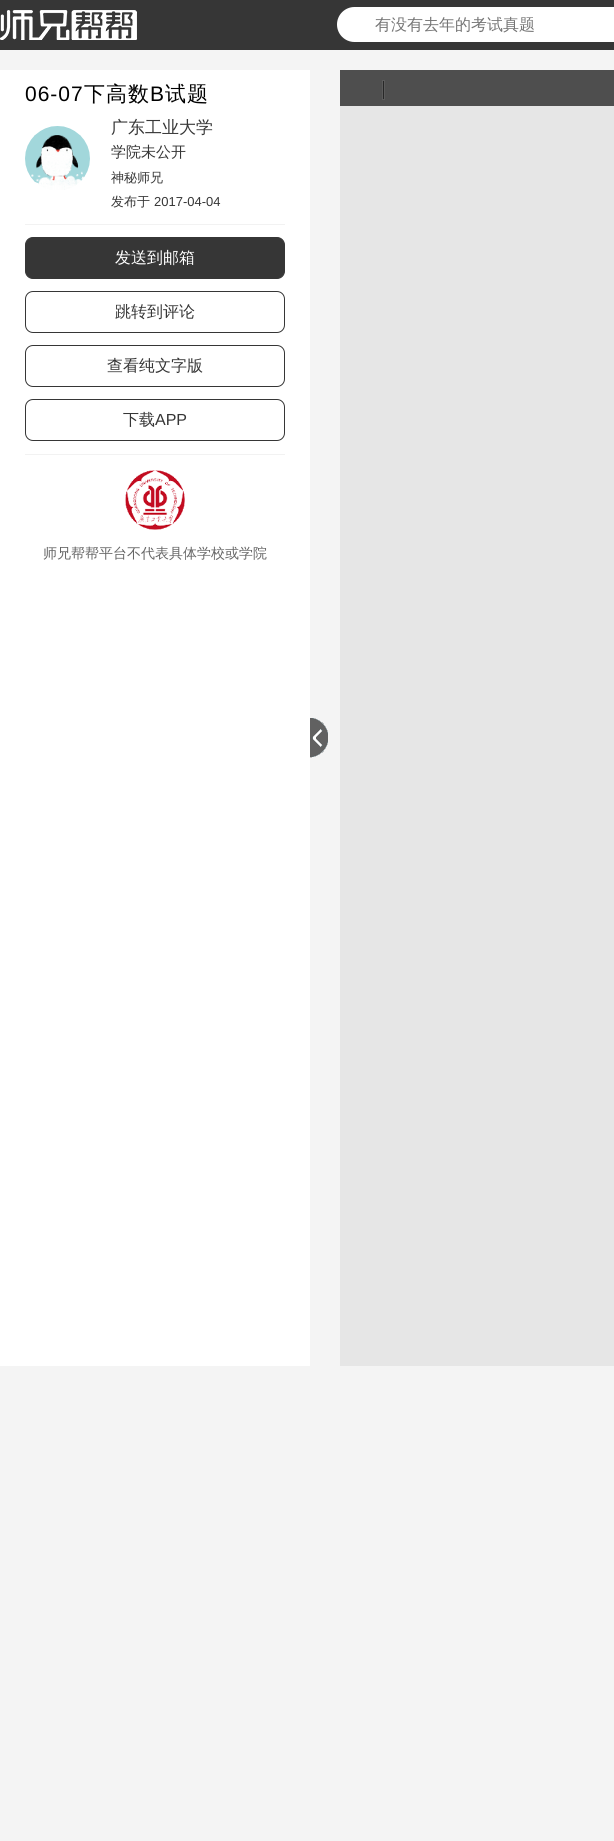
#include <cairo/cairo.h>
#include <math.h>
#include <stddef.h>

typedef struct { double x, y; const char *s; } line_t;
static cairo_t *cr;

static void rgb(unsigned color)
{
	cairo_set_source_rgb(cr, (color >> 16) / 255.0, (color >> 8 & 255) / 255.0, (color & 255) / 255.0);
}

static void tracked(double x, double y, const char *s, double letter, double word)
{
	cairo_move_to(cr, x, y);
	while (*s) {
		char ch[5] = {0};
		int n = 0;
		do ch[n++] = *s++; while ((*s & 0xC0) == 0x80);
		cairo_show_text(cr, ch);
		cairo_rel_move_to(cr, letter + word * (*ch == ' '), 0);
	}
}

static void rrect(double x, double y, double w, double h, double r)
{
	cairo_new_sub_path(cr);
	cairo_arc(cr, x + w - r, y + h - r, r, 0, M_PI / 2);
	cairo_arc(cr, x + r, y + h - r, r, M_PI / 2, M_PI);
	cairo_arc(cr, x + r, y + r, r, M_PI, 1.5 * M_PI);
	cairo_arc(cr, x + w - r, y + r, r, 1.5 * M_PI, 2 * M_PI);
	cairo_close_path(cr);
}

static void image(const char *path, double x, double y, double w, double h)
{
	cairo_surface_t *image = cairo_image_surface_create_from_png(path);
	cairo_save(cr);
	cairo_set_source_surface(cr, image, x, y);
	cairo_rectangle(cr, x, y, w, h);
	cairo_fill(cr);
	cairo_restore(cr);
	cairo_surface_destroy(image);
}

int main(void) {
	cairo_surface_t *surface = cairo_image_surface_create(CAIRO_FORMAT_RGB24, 614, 1841);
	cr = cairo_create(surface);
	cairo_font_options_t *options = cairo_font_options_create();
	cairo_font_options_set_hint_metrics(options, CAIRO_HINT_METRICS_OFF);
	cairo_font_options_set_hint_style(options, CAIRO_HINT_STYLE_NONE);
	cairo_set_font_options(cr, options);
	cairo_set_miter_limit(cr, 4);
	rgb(0xf4f4f4);
	cairo_paint(cr);
	rgb(0x363636);
	cairo_rectangle(cr, 0, 0, 614, 50);
	cairo_fill(cr);
	image("img/1.png", 0, 10, 137, 30);
	rgb(0xffffff);
	rrect(337, 7, 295, 35, 17.5);
	cairo_fill(cr);
	cairo_rectangle(cr, 0, 70, 310, 1296);
	cairo_fill(cr);
	rgb(0xf2f2f2);
	cairo_rectangle(cr, 25, 224, 260, 1);
	cairo_fill(cr);
	image("img/2.png", 25, 126, 65, 64);
	cairo_rectangle(cr, 25, 454, 260, 1);
	cairo_fill(cr);
	rgb(0x363636);
	rrect(25.5, 237.5, 259, 41, 7.5);
	cairo_fill_preserve(cr);
	cairo_set_line_width(cr, 1);
	cairo_stroke(cr);
	rrect(25.5, 291.5, 259, 41, 7.5);
	cairo_stroke(cr);
	rrect(25.5, 345.5, 259, 41, 7.5);
	cairo_stroke(cr);
	rrect(25.5, 399.5, 259, 41, 7.5);
	cairo_stroke(cr);
	image("img/3.png", 125, 470, 60, 60);
	image("img/4.png", 310, 718, 18, 40);
	image("img/5.png", 340, 70, 274, 1296);
	cairo_select_font_face(cr, "WenQuanYi Zen Hei Medium", CAIRO_FONT_SLANT_NORMAL, CAIRO_FONT_WEIGHT_NORMAL);
	cairo_set_font_size(cr, 16);
	rgb(0x757575);
	cairo_move_to(cr, 375, 30);
	cairo_show_text(cr, "有没有去年的考试真题");
	cairo_select_font_face(cr, "Liberation Sans", CAIRO_FONT_SLANT_NORMAL, CAIRO_FONT_WEIGHT_NORMAL);
	cairo_set_font_size(cr, 21);
	rgb(0x000000);
	tracked(25, 101, "06-07", 1, 0);
	cairo_select_font_face(cr, "WenQuanYi Zen Hei Medium", CAIRO_FONT_SLANT_NORMAL, CAIRO_FONT_WEIGHT_NORMAL);
	tracked(84, 101, "下高数", 1, 0);
	cairo_select_font_face(cr, "Liberation Sans", CAIRO_FONT_SLANT_NORMAL, CAIRO_FONT_WEIGHT_NORMAL);
	tracked(150, 101, "B", 1, 0);
	cairo_select_font_face(cr, "WenQuanYi Zen Hei Medium", CAIRO_FONT_SLANT_NORMAL, CAIRO_FONT_WEIGHT_NORMAL);
	tracked(165, 101, "试题", 1, 0);
	cairo_set_font_size(cr, 17);
	rgb(0x363636);
	cairo_move_to(cr, 111, 133);
	cairo_show_text(cr, "广东工业大学");
	cairo_set_font_size(cr, 15);
	cairo_move_to(cr, 111, 157);
	cairo_show_text(cr, "学院未公开");
	cairo_set_font_size(cr, 13);
	cairo_move_to(cr, 111, 182);
	cairo_show_text(cr, "神秘师兄");
	cairo_move_to(cr, 111, 206);
	cairo_show_text(cr, "发布于");
	cairo_select_font_face(cr, "Liberation Sans", CAIRO_FONT_SLANT_NORMAL, CAIRO_FONT_WEIGHT_NORMAL);
	cairo_move_to(cr, 154, 206);
	cairo_show_text(cr, "2017-04-04");
	cairo_select_font_face(cr, "WenQuanYi Zen Hei Medium", CAIRO_FONT_SLANT_NORMAL, CAIRO_FONT_WEIGHT_NORMAL);
	cairo_set_font_size(cr, 16);
	rgb(0xffffff);
	cairo_move_to(cr, 115, 263);
	cairo_show_text(cr, "发送到邮箱");
	rgb(0x363636);
	{
		static const line_t items[] = {
			{115, 317, "跳转到评论"},
			{107, 371, "查看纯文字版"},
			{123, 425, "下载"},
		};
		for (size_t i = 0; i < sizeof items / sizeof *items; i++) {
			cairo_move_to(cr, items[i].x, items[i].y);
			cairo_show_text(cr, items[i].s);
		}
	}
	cairo_select_font_face(cr, "Liberation Sans", CAIRO_FONT_SLANT_NORMAL, CAIRO_FONT_WEIGHT_NORMAL);
	cairo_move_to(cr, 155, 425);
	cairo_show_text(cr, "APP");
	cairo_select_font_face(cr, "WenQuanYi Zen Hei Medium", CAIRO_FONT_SLANT_NORMAL, CAIRO_FONT_WEIGHT_NORMAL);
	cairo_set_font_size(cr, 14);
	rgb(0x666666);
	cairo_move_to(cr, 43, 558);
	cairo_show_text(cr, "师兄帮帮平台不代表具体学校或学院");
	cairo_surface_write_to_png(surface, "page.png");
	cairo_font_options_destroy(options);
	cairo_destroy(cr);
	cairo_surface_destroy(surface);
	return 0;
}
